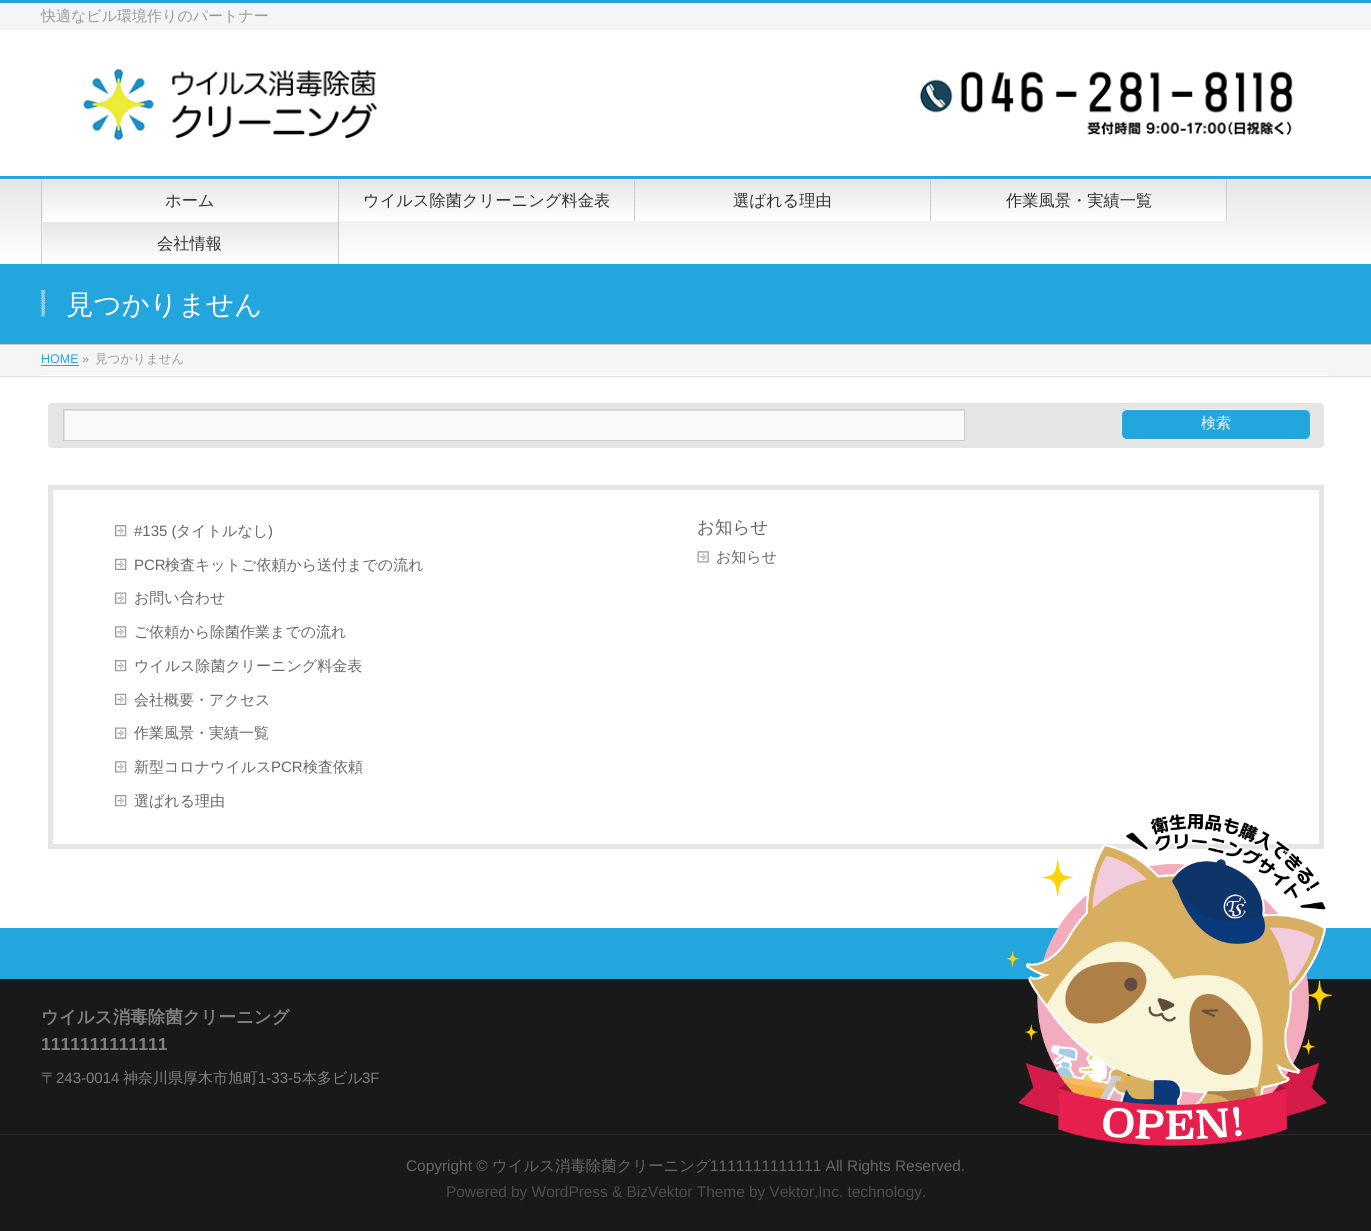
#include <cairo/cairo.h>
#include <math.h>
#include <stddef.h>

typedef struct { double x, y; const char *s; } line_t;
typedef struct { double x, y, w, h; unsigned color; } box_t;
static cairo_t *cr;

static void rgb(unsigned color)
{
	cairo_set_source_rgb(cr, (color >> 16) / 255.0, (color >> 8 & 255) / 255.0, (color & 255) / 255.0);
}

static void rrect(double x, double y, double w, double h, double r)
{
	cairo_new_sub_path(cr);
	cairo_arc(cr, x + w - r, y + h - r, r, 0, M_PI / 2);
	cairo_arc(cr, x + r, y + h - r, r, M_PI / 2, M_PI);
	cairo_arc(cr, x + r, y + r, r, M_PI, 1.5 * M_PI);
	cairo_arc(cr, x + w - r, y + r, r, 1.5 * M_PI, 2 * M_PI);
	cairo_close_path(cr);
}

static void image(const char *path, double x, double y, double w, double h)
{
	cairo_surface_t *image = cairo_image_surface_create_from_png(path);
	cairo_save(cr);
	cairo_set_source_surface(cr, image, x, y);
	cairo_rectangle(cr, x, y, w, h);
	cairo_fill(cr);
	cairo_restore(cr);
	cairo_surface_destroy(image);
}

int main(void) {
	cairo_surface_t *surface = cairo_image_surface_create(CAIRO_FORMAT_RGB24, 1371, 1231);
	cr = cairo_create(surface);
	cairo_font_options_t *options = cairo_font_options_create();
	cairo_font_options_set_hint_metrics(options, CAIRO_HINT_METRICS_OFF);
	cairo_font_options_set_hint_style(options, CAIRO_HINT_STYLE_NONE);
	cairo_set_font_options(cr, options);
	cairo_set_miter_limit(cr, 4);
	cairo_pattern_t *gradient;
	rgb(0xffffff);
	cairo_paint(cr);
	rgb(0xf5f5f5);
	cairo_rectangle(cr, 0, 3, 1371, 27);
	cairo_fill(cr);
	rgb(0x23a5dd);
	cairo_rectangle(cr, 0, 0, 1371, 3);
	cairo_fill(cr);
	image("img/1.png", 83, 66, 1210, 75);
	gradient = cairo_pattern_create_linear(0, 179, 0, 264);
	cairo_pattern_add_color_stop_rgba(gradient, 0, 0.898, 0.898, 0.898, 1);
	cairo_pattern_add_color_stop_rgba(gradient, 1, 1, 1, 1, 1);
	cairo_set_source(cr, gradient);
	cairo_pattern_destroy(gradient);
	cairo_rectangle(cr, 0, 180, 1371, 76);
	cairo_fill(cr);
	rgb(0x23a5dd);
	cairo_rectangle(cr, 0, 176, 1371, 3);
	cairo_fill(cr);
	rgb(0xcccccc);
	cairo_rectangle(cr, 41, 179, 1, 85);
	cairo_fill(cr);
	gradient = cairo_pattern_create_linear(43, 179, 43, 221);
	cairo_pattern_add_color_stop_rgba(gradient, 0, 0.898, 0.898, 0.898, 1);
	cairo_pattern_add_color_stop_rgba(gradient, 1, 1, 1, 1, 1);
	cairo_set_source(cr, gradient);
	cairo_pattern_destroy(gradient);
	cairo_rectangle(cr, 43, 186, 295, 35);
	cairo_fill(cr);
	rgb(0xcccccc);
	cairo_rectangle(cr, 338, 179, 1, 85);
	cairo_fill(cr);
	gradient = cairo_pattern_create_linear(339, 179, 339, 221);
	cairo_pattern_add_color_stop_rgba(gradient, 0, 0.898, 0.898, 0.898, 1);
	cairo_pattern_add_color_stop_rgba(gradient, 1, 1, 1, 1, 1);
	cairo_set_source(cr, gradient);
	cairo_pattern_destroy(gradient);
	cairo_rectangle(cr, 339, 186, 295, 35);
	cairo_fill(cr);
	rgb(0xcccccc);
	cairo_rectangle(cr, 634, 179, 1, 42);
	cairo_fill(cr);
	gradient = cairo_pattern_create_linear(635, 179, 635, 221);
	cairo_pattern_add_color_stop_rgba(gradient, 0, 0.898, 0.898, 0.898, 1);
	cairo_pattern_add_color_stop_rgba(gradient, 1, 1, 1, 1, 1);
	cairo_set_source(cr, gradient);
	cairo_pattern_destroy(gradient);
	cairo_rectangle(cr, 635, 186, 295, 35);
	cairo_fill(cr);
	rgb(0xcccccc);
	cairo_rectangle(cr, 930, 179, 1, 42);
	cairo_fill(cr);
	gradient = cairo_pattern_create_linear(931, 179, 931, 221);
	cairo_pattern_add_color_stop_rgba(gradient, 0, 0.898, 0.898, 0.898, 1);
	cairo_pattern_add_color_stop_rgba(gradient, 1, 1, 1, 1, 1);
	cairo_set_source(cr, gradient);
	cairo_pattern_destroy(gradient);
	cairo_rectangle(cr, 931, 179, 297, 42);
	cairo_fill(cr);
	rgb(0xffffff);
	cairo_rectangle(cr, 931, 179, 295, 1);
	cairo_fill(cr);
	rgb(0xcccccc);
	cairo_rectangle(cr, 1226, 179, 1, 42);
	cairo_fill(cr);
	gradient = cairo_pattern_create_linear(43, 221, 43, 264);
	cairo_pattern_add_color_stop_rgba(gradient, 0, 0.898, 0.898, 0.898, 1);
	cairo_pattern_add_color_stop_rgba(gradient, 1, 1, 1, 1, 1);
	cairo_set_source(cr, gradient);
	cairo_pattern_destroy(gradient);
	cairo_rectangle(cr, 43, 222, 295, 35);
	cairo_fill(cr);
	{
		static const box_t items[] = {
			{43, 221, 295, 1, 0xffffff},
			{0, 264, 1371, 80, 0x23a5dd},
			{0, 344, 1371, 1, 0xcccccc},
		};
		for (size_t i = 0; i < sizeof items / sizeof *items; i++) {
			rgb(items[i].color);
			cairo_rectangle(cr, items[i].x, items[i].y, items[i].w, items[i].h);
			cairo_fill(cr);
		}
	}
	image("img/2.png", 41, 290, 4, 27);
	{
		static const box_t items[] = {
			{0, 345, 1371, 33, 0xf5f5f5},
			{0, 376, 1371, 1, 0xe5e5e5},
			{41, 375, 1289, 1, 0xffffff},
			{41, 365, 38, 1, 0x23a5dd},
		};
		for (size_t i = 0; i < sizeof items / sizeof *items; i++) {
			rgb(items[i].color);
			cairo_rectangle(cr, items[i].x, items[i].y, items[i].w, items[i].h);
			cairo_fill(cr);
		}
	}
	rgb(0xe5e5e5);
	rrect(48, 403, 1276, 45, 4);
	cairo_fill(cr);
	rgb(0xf9f9f9);
	cairo_rectangle(cr, 65, 411, 899, 29);
	cairo_fill(cr);
	cairo_save(cr);
	cairo_rectangle(cr, 64, 410, 900, 30);
	cairo_clip(cr);
	rgb(0xe0e0e0);
	cairo_set_fill_rule(cr, CAIRO_FILL_RULE_EVEN_ODD);
	cairo_new_path(cr);
	cairo_move_to(cr, 52, 403);
	cairo_line_to(cr, 1088, 403);
	cairo_line_to(cr, 1088, 448);
	cairo_line_to(cr, 52, 448);
	cairo_curve_to(cr, 50, 448, 48, 446, 48, 444);
	cairo_line_to(cr, 48, 407);
	cairo_curve_to(cr, 48, 405, 50, 403, 52, 403);
	cairo_close_path(cr);
	cairo_move_to(cr, 65, 411);
	cairo_line_to(cr, 65, 441);
	cairo_line_to(cr, 965, 441);
	cairo_line_to(cr, 965, 411);
	cairo_close_path(cr);
	cairo_fill(cr);
	cairo_restore(cr);
	cairo_rectangle(cr, 63.5, 409.5, 901, 31);
	rgb(0xcccccc);
	cairo_set_line_width(cr, 1);
	cairo_stroke(cr);
	rgb(0x23a5dd);
	rrect(1121, 409, 190, 31, 6);
	cairo_fill(cr);
	rrect(1121.5, 409.5, 189, 30, 5.5);
	cairo_set_source_rgba(cr, 1, 1, 1, 0.9);
	cairo_stroke(cr);
	cairo_rectangle(cr, 50.5, 487.5, 1271, 359);
	rgb(0xe5e5e5);
	cairo_set_line_width(cr, 5);
	cairo_stroke(cr);
	image("img/3.png", 115, 525, 12, 12);
	image("img/4.png", 115, 558, 12, 12);
	image("img/5.png", 115, 592, 12, 12);
	image("img/6.png", 115, 626, 12, 12);
	image("img/3.png", 115, 660, 12, 12);
	image("img/4.png", 115, 693, 12, 12);
	image("img/5.png", 115, 727, 12, 12);
	image("img/6.png", 115, 761, 12, 12);
	image("img/3.png", 115, 795, 12, 12);
	image("img/7.png", 697, 551, 12, 12);
	{
		static const box_t items[] = {
			{0, 928, 1371, 51, 0x23a5dd},
			{0, 980, 1371, 154, 0x191919},
			{0, 979, 1371, 1, 0x151515},
			{0, 1135, 1371, 96, 0x191919},
			{0, 1134, 1371, 1, 0x262626},
		};
		for (size_t i = 0; i < sizeof items / sizeof *items; i++) {
			rgb(items[i].color);
			cairo_rectangle(cr, items[i].x, items[i].y, items[i].w, items[i].h);
			cairo_fill(cr);
		}
	}
	image("img/8.png", 1006, 814, 326, 332);
	cairo_select_font_face(cr, "WenQuanYi Zen Hei Medium", CAIRO_FONT_SLANT_NORMAL, CAIRO_FONT_WEIGHT_NORMAL);
	cairo_set_font_size(cr, 15);
	rgb(0x999999);
	cairo_move_to(cr, 41, 21);
	cairo_show_text(cr, "快適なビル環境作りのパートナー");
	cairo_set_font_size(cr, 16.25);
	rgb(0x333333);
	{
		static const line_t items[] = {
			{165, 206, "ホーム"},
			{363, 206, "ウイルス除菌クリーニング料金表"},
			{733, 206, "選ばれる理由"},
			{1006, 206, "作業風景・実績一覧"},
			{157, 249, "会社情報"},
		};
		for (size_t i = 0; i < sizeof items / sizeof *items; i++) {
			cairo_move_to(cr, items[i].x, items[i].y);
			cairo_show_text(cr, items[i].s);
		}
	}
	cairo_set_font_size(cr, 27.5);
	rgb(0xffffff);
	cairo_move_to(cr, 66, 314);
	cairo_show_text(cr, "見つかりません");
	cairo_select_font_face(cr, "Liberation Sans", CAIRO_FONT_SLANT_NORMAL, CAIRO_FONT_WEIGHT_NORMAL);
	cairo_set_font_size(cr, 12.5);
	rgb(0x23a5dd);
	cairo_move_to(cr, 41, 363);
	cairo_show_text(cr, "HOME");
	rgb(0x999999);
	cairo_move_to(cr, 82, 363);
	cairo_show_text(cr, "»");
	cairo_select_font_face(cr, "WenQuanYi Zen Hei Medium", CAIRO_FONT_SLANT_NORMAL, CAIRO_FONT_WEIGHT_NORMAL);
	cairo_move_to(cr, 95, 363);
	cairo_show_text(cr, "見つかりません");
	cairo_set_font_size(cr, 15);
	rgb(0xf5f5f5);
	cairo_move_to(cr, 1201, 428);
	cairo_show_text(cr, "検索");
	cairo_select_font_face(cr, "Liberation Sans", CAIRO_FONT_SLANT_NORMAL, CAIRO_FONT_WEIGHT_NORMAL);
	rgb(0x666666);
	cairo_move_to(cr, 134, 536);
	cairo_show_text(cr, "#135 (");
	cairo_select_font_face(cr, "WenQuanYi Zen Hei Medium", CAIRO_FONT_SLANT_NORMAL, CAIRO_FONT_WEIGHT_NORMAL);
	cairo_move_to(cr, 176, 536);
	cairo_show_text(cr, "タイトルなし");
	cairo_select_font_face(cr, "Liberation Sans", CAIRO_FONT_SLANT_NORMAL, CAIRO_FONT_WEIGHT_NORMAL);
	cairo_move_to(cr, 268, 536);
	cairo_show_text(cr, ")");
	cairo_move_to(cr, 134, 570);
	cairo_show_text(cr, "PCR");
	cairo_select_font_face(cr, "WenQuanYi Zen Hei Medium", CAIRO_FONT_SLANT_NORMAL, CAIRO_FONT_WEIGHT_NORMAL);
	{
		static const line_t items[] = {
			{165, 570, "検査キットご依頼から送付までの流れ"},
			{134, 603, "お問い合わせ"},
			{134, 637, "ご依頼から除菌作業までの流れ"},
			{134, 671, "ウイルス除菌クリーニング料金表"},
			{134, 705, "会社概要・アクセス"},
			{134, 738, "作業風景・実績一覧"},
			{134, 772, "新型コロナウイルス"},
		};
		for (size_t i = 0; i < sizeof items / sizeof *items; i++) {
			cairo_move_to(cr, items[i].x, items[i].y);
			cairo_show_text(cr, items[i].s);
		}
	}
	cairo_select_font_face(cr, "Liberation Sans", CAIRO_FONT_SLANT_NORMAL, CAIRO_FONT_WEIGHT_NORMAL);
	cairo_move_to(cr, 271, 772);
	cairo_show_text(cr, "PCR");
	cairo_select_font_face(cr, "WenQuanYi Zen Hei Medium", CAIRO_FONT_SLANT_NORMAL, CAIRO_FONT_WEIGHT_NORMAL);
	cairo_move_to(cr, 303, 772);
	cairo_show_text(cr, "検査依頼");
	cairo_move_to(cr, 134, 806);
	cairo_show_text(cr, "選ばれる理由");
	cairo_set_font_size(cr, 17.5);
	cairo_move_to(cr, 697, 533);
	cairo_show_text(cr, "お知らせ");
	cairo_set_font_size(cr, 15);
	cairo_move_to(cr, 716, 562);
	cairo_show_text(cr, "お知らせ");
	cairo_select_font_face(cr, "WenQuanYi Zen Hei", CAIRO_FONT_SLANT_NORMAL, CAIRO_FONT_WEIGHT_BOLD);
	cairo_set_font_size(cr, 17.5);
	rgb(0x808080);
	cairo_move_to(cr, 41, 1023);
	cairo_show_text(cr, "ウイルス消毒除菌クリーニング");
	cairo_select_font_face(cr, "Liberation Sans", CAIRO_FONT_SLANT_NORMAL, CAIRO_FONT_WEIGHT_BOLD);
	cairo_move_to(cr, 41, 1050);
	cairo_show_text(cr, "1111111111111");
	cairo_select_font_face(cr, "WenQuanYi Zen Hei Medium", CAIRO_FONT_SLANT_NORMAL, CAIRO_FONT_WEIGHT_NORMAL);
	cairo_set_font_size(cr, 15);
	cairo_move_to(cr, 41, 1083);
	cairo_show_text(cr, "〒");
	cairo_select_font_face(cr, "Liberation Sans", CAIRO_FONT_SLANT_NORMAL, CAIRO_FONT_WEIGHT_NORMAL);
	cairo_move_to(cr, 56, 1083);
	cairo_show_text(cr, "243-0014");
	cairo_select_font_face(cr, "WenQuanYi Zen Hei Medium", CAIRO_FONT_SLANT_NORMAL, CAIRO_FONT_WEIGHT_NORMAL);
	cairo_move_to(cr, 123, 1083);
	cairo_show_text(cr, "神奈川県厚木市旭町");
	cairo_select_font_face(cr, "Liberation Sans", CAIRO_FONT_SLANT_NORMAL, CAIRO_FONT_WEIGHT_NORMAL);
	cairo_move_to(cr, 258, 1083);
	cairo_show_text(cr, "1-33-5");
	cairo_select_font_face(cr, "WenQuanYi Zen Hei Medium", CAIRO_FONT_SLANT_NORMAL, CAIRO_FONT_WEIGHT_NORMAL);
	cairo_move_to(cr, 302, 1083);
	cairo_show_text(cr, "本多ビル");
	cairo_select_font_face(cr, "Liberation Sans", CAIRO_FONT_SLANT_NORMAL, CAIRO_FONT_WEIGHT_NORMAL);
	cairo_move_to(cr, 362, 1083);
	cairo_show_text(cr, "3F");
	cairo_set_font_size(cr, 15.4);
	rgb(0x666666);
	cairo_move_to(cr, 406, 1171);
	cairo_show_text(cr, "Copyright ©");
	cairo_select_font_face(cr, "WenQuanYi Zen Hei Medium", CAIRO_FONT_SLANT_NORMAL, CAIRO_FONT_WEIGHT_NORMAL);
	cairo_move_to(cr, 492, 1171);
	cairo_show_text(cr, "ウイルス消毒除菌クリーニング");
	cairo_select_font_face(cr, "Liberation Sans", CAIRO_FONT_SLANT_NORMAL, CAIRO_FONT_WEIGHT_NORMAL);
	cairo_move_to(cr, 710, 1171);
	cairo_show_text(cr, "1111111111111 All Rights Reserved.");
	rgb(0x4d4d4d);
	cairo_move_to(cr, 446, 1197);
	cairo_show_text(cr, "Powered by WordPress & BizVektor Theme by Vektor,Inc. technology.");
	cairo_surface_write_to_png(surface, "page.png");
	cairo_font_options_destroy(options);
	cairo_destroy(cr);
	cairo_surface_destroy(surface);
	return 0;
}
